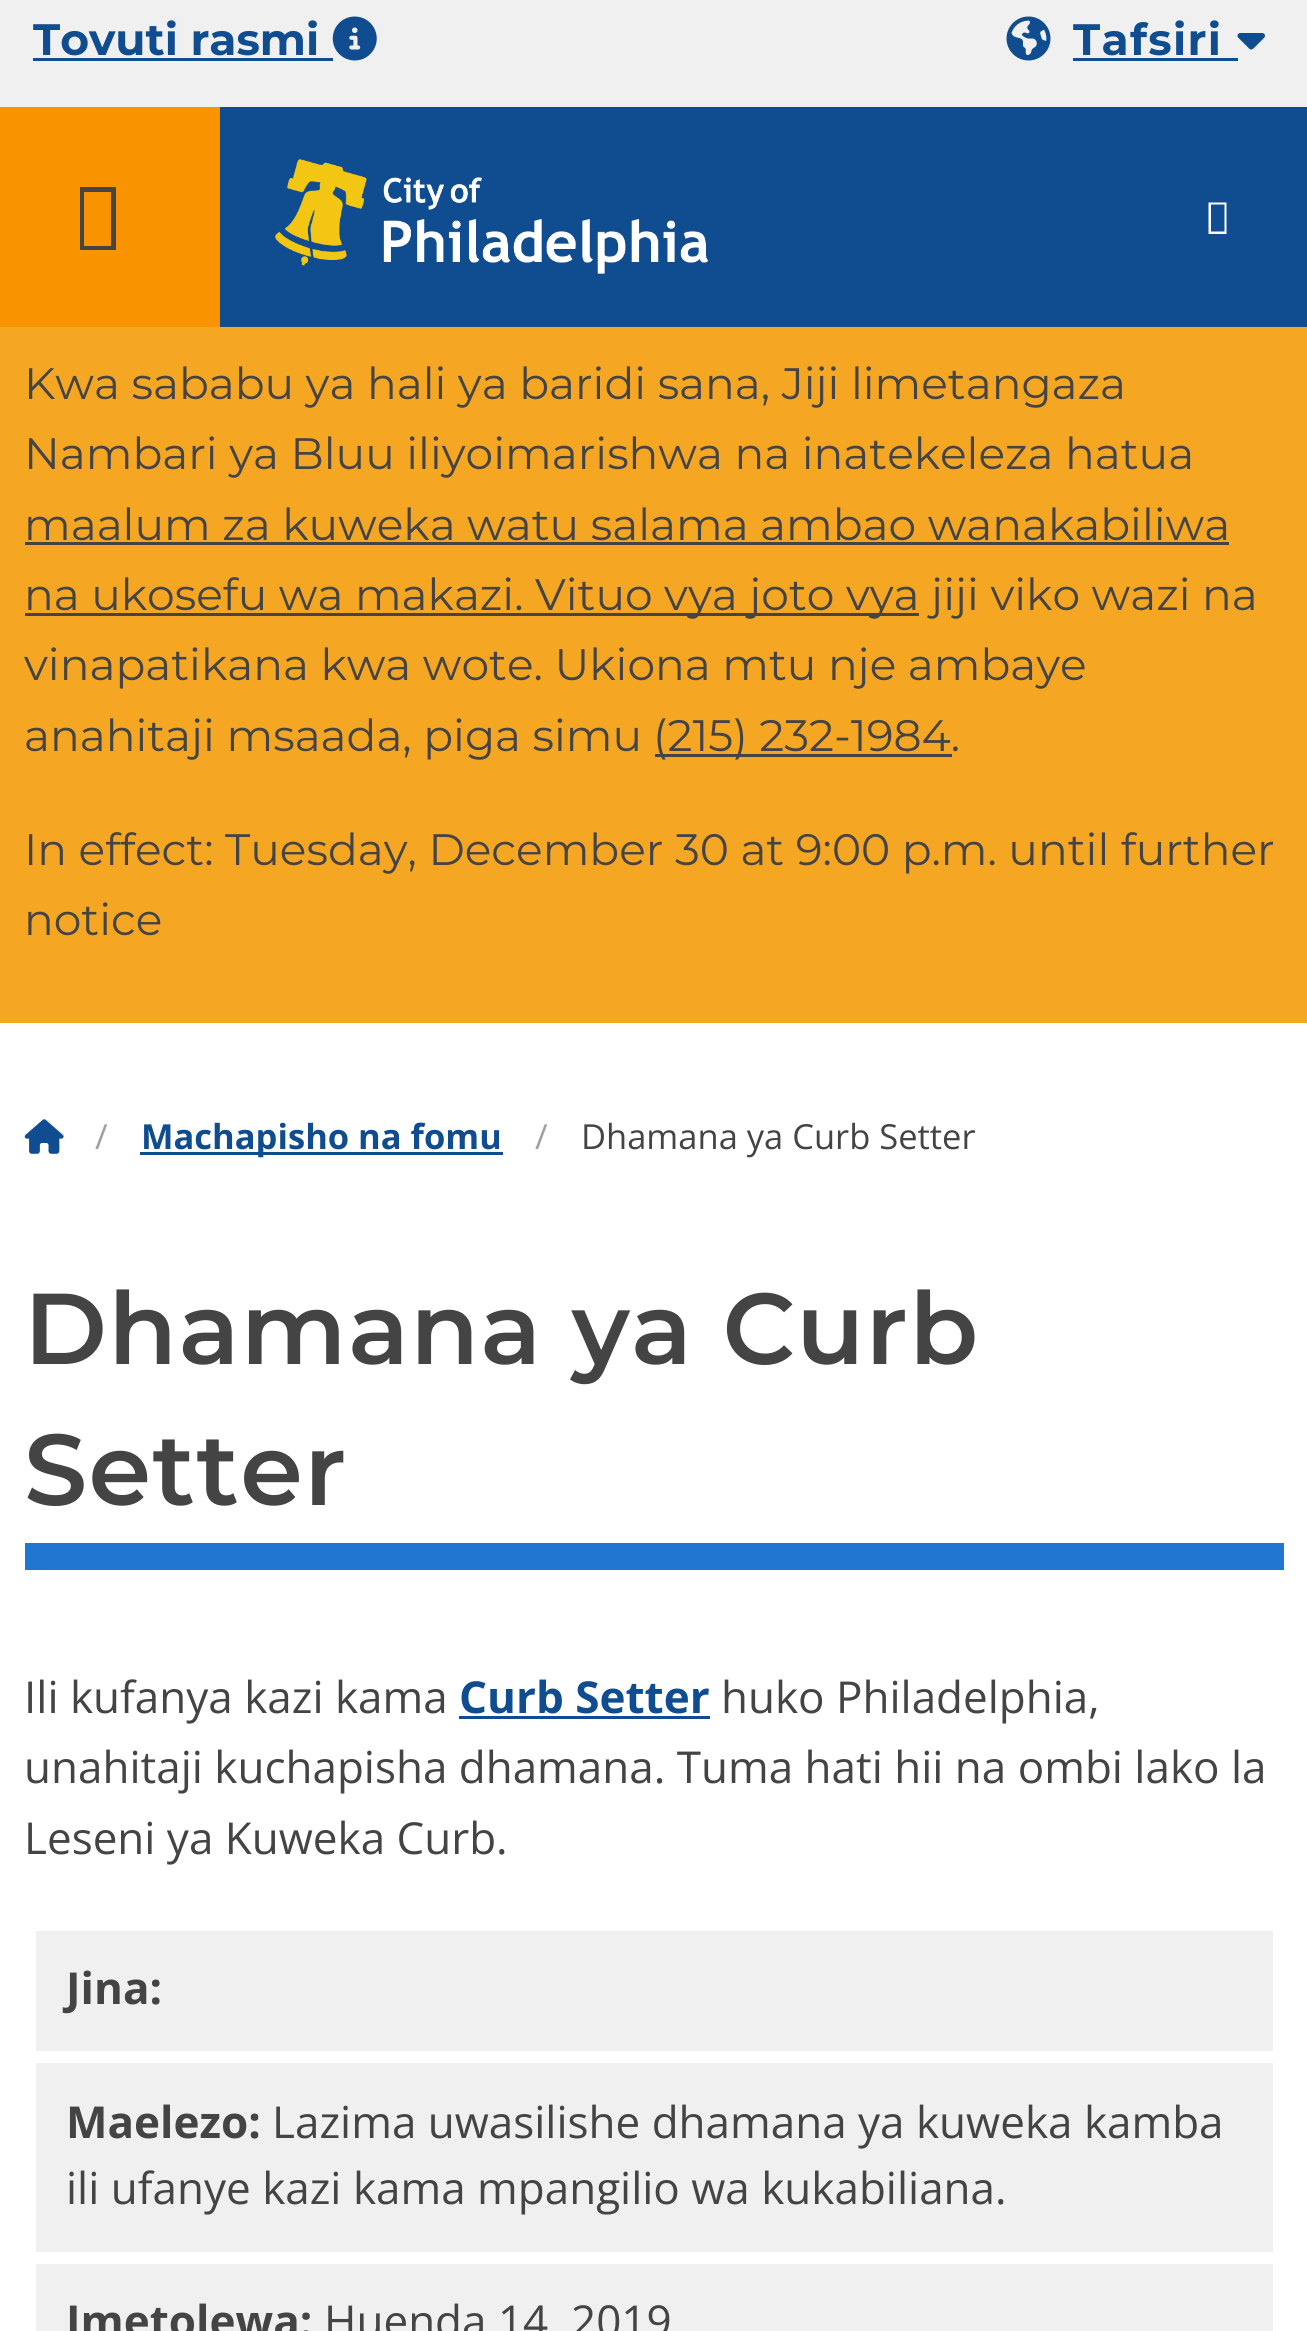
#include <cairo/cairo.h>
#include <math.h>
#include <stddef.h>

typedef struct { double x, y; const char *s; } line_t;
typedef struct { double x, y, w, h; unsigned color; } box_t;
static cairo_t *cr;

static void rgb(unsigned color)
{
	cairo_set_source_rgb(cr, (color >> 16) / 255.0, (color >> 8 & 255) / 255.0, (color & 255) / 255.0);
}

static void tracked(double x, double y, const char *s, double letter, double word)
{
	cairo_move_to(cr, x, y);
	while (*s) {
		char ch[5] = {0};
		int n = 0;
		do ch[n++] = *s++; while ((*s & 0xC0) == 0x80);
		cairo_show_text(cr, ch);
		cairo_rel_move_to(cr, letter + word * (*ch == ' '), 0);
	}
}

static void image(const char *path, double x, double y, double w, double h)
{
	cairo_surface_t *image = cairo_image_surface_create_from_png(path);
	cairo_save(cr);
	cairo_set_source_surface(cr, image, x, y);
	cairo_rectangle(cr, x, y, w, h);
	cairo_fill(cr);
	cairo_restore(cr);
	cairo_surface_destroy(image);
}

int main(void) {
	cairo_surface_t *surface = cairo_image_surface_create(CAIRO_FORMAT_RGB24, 1307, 2331);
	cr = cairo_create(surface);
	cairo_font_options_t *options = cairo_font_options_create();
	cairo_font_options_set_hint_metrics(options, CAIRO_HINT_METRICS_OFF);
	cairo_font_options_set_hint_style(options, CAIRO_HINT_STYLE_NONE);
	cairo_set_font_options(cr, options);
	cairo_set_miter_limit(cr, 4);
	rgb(0xffffff);
	cairo_paint(cr);
	{
		static const box_t items[] = {
			{220, 107, 1087, 220, 0x0f4d90},
			{0, 0, 1307, 107, 0xf0f0f0},
			{33, 58, 300, 3, 0x0f4d90},
		};
		for (size_t i = 0; i < sizeof items / sizeof *items; i++) {
			rgb(items[i].color);
			cairo_rectangle(cr, items[i].x, items[i].y, items[i].w, items[i].h);
			cairo_fill(cr);
		}
	}
	image("img/1.png", 332, 16, 45, 45);
	image("img/2.png", 1006, 16, 45, 45);
	cairo_rectangle(cr, 1073, 58, 165, 3);
	cairo_fill(cr);
	image("img/3.png", 1237, 33, 28, 17);
	rgb(0xf99300);
	cairo_rectangle(cr, 0, 107, 220, 220);
	cairo_fill(cr);
	rgb(0x444444);
	cairo_new_path(cr);
	cairo_move_to(cr, 80, 250);
	cairo_line_to(cr, 80, 187);
	cairo_line_to(cr, 116, 187);
	cairo_line_to(cr, 116, 250);
	cairo_close_path(cr);
	cairo_move_to(cr, 84, 246);
	cairo_line_to(cr, 111, 246);
	cairo_line_to(cr, 111, 192);
	cairo_line_to(cr, 84, 192);
	cairo_close_path(cr);
	cairo_fill(cr);
	image("img/4.png", 275, 159, 434, 115);
	rgb(0xffffff);
	cairo_new_path(cr);
	cairo_move_to(cr, 1208.5, 234);
	cairo_line_to(cr, 1208.5, 202.5);
	cairo_line_to(cr, 1226.5, 202.5);
	cairo_line_to(cr, 1226.5, 234);
	cairo_close_path(cr);
	cairo_move_to(cr, 1211, 231.5);
	cairo_line_to(cr, 1224.5, 231.5);
	cairo_line_to(cr, 1224.5, 204.5);
	cairo_line_to(cr, 1211, 204.5);
	cairo_close_path(cr);
	cairo_fill(cr);
	{
		static const box_t items[] = {
			{0, 327, 1307, 696, 0xf5a623},
			{25, 542, 1204, 3, 0x444444},
			{25, 613, 894, 3, 0x444444},
			{655, 754, 297, 3, 0x444444},
		};
		for (size_t i = 0; i < sizeof items / sizeof *items; i++) {
			rgb(items[i].color);
			cairo_rectangle(cr, items[i].x, items[i].y, items[i].w, items[i].h);
			cairo_fill(cr);
		}
	}
	image("img/5.png", 24, 1119, 40, 35);
	{
		static const box_t items[] = {
			{140, 1152, 363, 3, 0x0f4d90},
			{25, 1543, 1259, 27, 0x2176d2},
			{459, 1716, 251, 3, 0x0f4d90},
			{36, 1931, 1237, 400, 0xf0f0f0},
		};
		for (size_t i = 0; i < sizeof items / sizeof *items; i++) {
			rgb(items[i].color);
			cairo_rectangle(cr, items[i].x, items[i].y, items[i].w, items[i].h);
			cairo_fill(cr);
		}
	}
	cairo_rectangle(cr, 33, 1928, 1243, 126);
	rgb(0xffffff);
	cairo_set_line_width(cr, 6);
	cairo_stroke(cr);
	cairo_rectangle(cr, 33, 2060, 1243, 195);
	cairo_stroke(cr);
	cairo_rectangle(cr, 33, 2261, 1243, 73);
	cairo_stroke(cr);
	cairo_select_font_face(cr, "Montserrat", CAIRO_FONT_SLANT_NORMAL, CAIRO_FONT_WEIGHT_BOLD);
	cairo_set_font_size(cr, 44);
	rgb(0x0f4d90);
	cairo_move_to(cr, 33, 55);
	cairo_show_text(cr, "Tovuti rasmi");
	tracked(1073, 55, "Tafsiri", 1.3, 0);
	cairo_select_font_face(cr, "Montserrat", CAIRO_FONT_SLANT_NORMAL, CAIRO_FONT_WEIGHT_NORMAL);
	rgb(0x444444);
	{
		static const line_t items[] = {
			{24, 399, "Kwa sababu ya hali ya baridi sana, Jiji limetangaza"},
			{24, 469, "Nambari ya Bluu iliyoimarishwa na inatekeleza hatua"},
			{24, 540, "maalum za kuweka watu salama ambao wanakabiliwa"},
			{24, 610, "na ukosefu wa makazi. Vituo vya joto vya jiji viko wazi na"},
			{24, 680, "vinapatikana kwa wote. Ukiona mtu nje ambaye"},
			{24, 751, "anahitaji msaada, piga simu"},
			{653, 751, "(215) 232-1984."},
			{24, 865, "In effect: Tuesday, December 30 at 9:00 p.m. until further"},
			{24, 935, "notice"},
		};
		for (size_t i = 0; i < sizeof items / sizeof *items; i++) {
			cairo_move_to(cr, items[i].x, items[i].y);
			cairo_show_text(cr, items[i].s);
		}
	}
	cairo_select_font_face(cr, "Open Sans", CAIRO_FONT_SLANT_NORMAL, CAIRO_FONT_WEIGHT_NORMAL);
	cairo_set_font_size(cr, 34.5);
	rgb(0xa1a1a1);
	cairo_move_to(cr, 95, 1149);
	cairo_show_text(cr, "/");
	cairo_select_font_face(cr, "Open Sans", CAIRO_FONT_SLANT_NORMAL, CAIRO_FONT_WEIGHT_BOLD);
	rgb(0x0f4d90);
	cairo_move_to(cr, 141, 1149);
	cairo_show_text(cr, "Machapisho na fomu");
	cairo_select_font_face(cr, "Open Sans", CAIRO_FONT_SLANT_NORMAL, CAIRO_FONT_WEIGHT_NORMAL);
	rgb(0xa1a1a1);
	cairo_move_to(cr, 535, 1149);
	cairo_show_text(cr, "/");
	rgb(0x444444);
	cairo_move_to(cr, 581, 1149);
	cairo_show_text(cr, "Dhamana ya Curb Setter");
	cairo_select_font_face(cr, "Montserrat Thin", CAIRO_FONT_SLANT_NORMAL, CAIRO_FONT_WEIGHT_NORMAL);
	cairo_set_font_size(cr, 100.5);
	tracked(24, 1364, "Dhamana ya Curb", 1.3, 0);
	tracked(24, 1505, "Setter", 1.3, 0);
	cairo_select_font_face(cr, "Open Sans", CAIRO_FONT_SLANT_NORMAL, CAIRO_FONT_WEIGHT_NORMAL);
	cairo_set_font_size(cr, 44);
	cairo_move_to(cr, 24, 1713);
	cairo_show_text(cr, "Ili kufanya kazi kama");
	cairo_select_font_face(cr, "Open Sans", CAIRO_FONT_SLANT_NORMAL, CAIRO_FONT_WEIGHT_BOLD);
	rgb(0x0f4d90);
	cairo_move_to(cr, 459, 1713);
	cairo_show_text(cr, "Curb Setter");
	cairo_select_font_face(cr, "Open Sans", CAIRO_FONT_SLANT_NORMAL, CAIRO_FONT_WEIGHT_NORMAL);
	rgb(0x444444);
	{
		static const line_t items[] = {
			{721, 1713, "huko Philadelphia,"},
			{24, 1783, "unahitaji kuchapisha dhamana. Tuma hati hii na ombi lako la"},
			{24, 1854, "Leseni ya Kuweka Curb."},
		};
		for (size_t i = 0; i < sizeof items / sizeof *items; i++) {
			cairo_move_to(cr, items[i].x, items[i].y);
			cairo_show_text(cr, items[i].s);
		}
	}
	cairo_select_font_face(cr, "Open Sans", CAIRO_FONT_SLANT_NORMAL, CAIRO_FONT_WEIGHT_BOLD);
	cairo_move_to(cr, 66, 2004);
	cairo_show_text(cr, "Jina:");
	cairo_move_to(cr, 66, 2138);
	cairo_show_text(cr, "Maelezo:");
	cairo_select_font_face(cr, "Open Sans", CAIRO_FONT_SLANT_NORMAL, CAIRO_FONT_WEIGHT_NORMAL);
	cairo_move_to(cr, 272, 2138);
	cairo_show_text(cr, "Lazima uwasilishe dhamana ya kuweka kamba");
	cairo_move_to(cr, 66, 2204);
	cairo_show_text(cr, "ili ufanye kazi kama mpangilio wa kukabiliana.");
	cairo_select_font_face(cr, "Open Sans", CAIRO_FONT_SLANT_NORMAL, CAIRO_FONT_WEIGHT_BOLD);
	cairo_move_to(cr, 66, 2337);
	cairo_show_text(cr, "Imetolewa:");
	cairo_select_font_face(cr, "Open Sans", CAIRO_FONT_SLANT_NORMAL, CAIRO_FONT_WEIGHT_NORMAL);
	cairo_move_to(cr, 324, 2337);
	cairo_show_text(cr, "Huenda 14, 2019");
	cairo_surface_write_to_png(surface, "page.png");
	cairo_font_options_destroy(options);
	cairo_destroy(cr);
	cairo_surface_destroy(surface);
	return 0;
}
